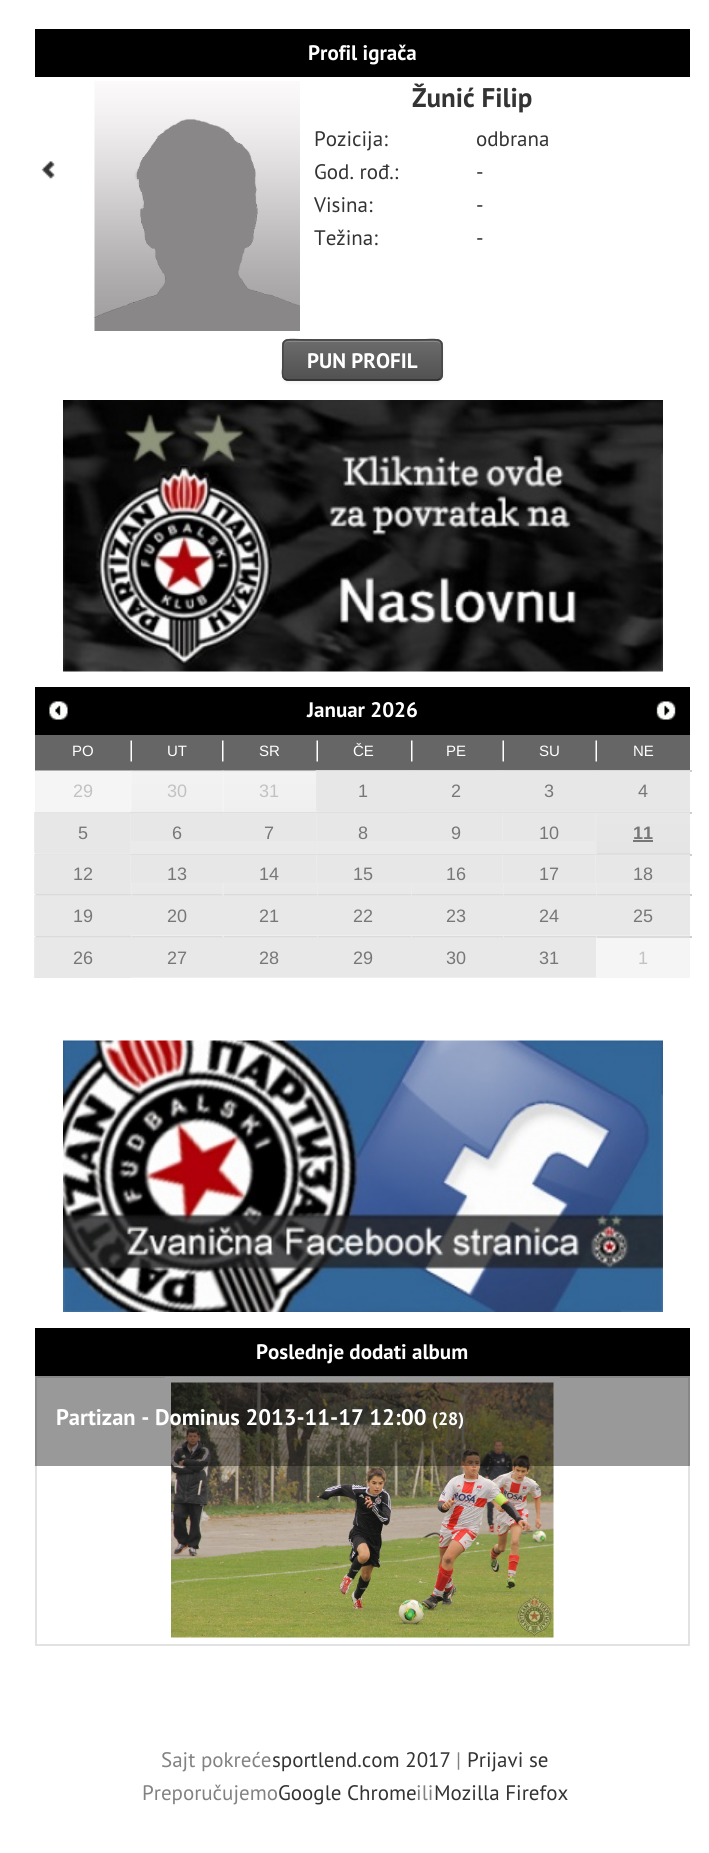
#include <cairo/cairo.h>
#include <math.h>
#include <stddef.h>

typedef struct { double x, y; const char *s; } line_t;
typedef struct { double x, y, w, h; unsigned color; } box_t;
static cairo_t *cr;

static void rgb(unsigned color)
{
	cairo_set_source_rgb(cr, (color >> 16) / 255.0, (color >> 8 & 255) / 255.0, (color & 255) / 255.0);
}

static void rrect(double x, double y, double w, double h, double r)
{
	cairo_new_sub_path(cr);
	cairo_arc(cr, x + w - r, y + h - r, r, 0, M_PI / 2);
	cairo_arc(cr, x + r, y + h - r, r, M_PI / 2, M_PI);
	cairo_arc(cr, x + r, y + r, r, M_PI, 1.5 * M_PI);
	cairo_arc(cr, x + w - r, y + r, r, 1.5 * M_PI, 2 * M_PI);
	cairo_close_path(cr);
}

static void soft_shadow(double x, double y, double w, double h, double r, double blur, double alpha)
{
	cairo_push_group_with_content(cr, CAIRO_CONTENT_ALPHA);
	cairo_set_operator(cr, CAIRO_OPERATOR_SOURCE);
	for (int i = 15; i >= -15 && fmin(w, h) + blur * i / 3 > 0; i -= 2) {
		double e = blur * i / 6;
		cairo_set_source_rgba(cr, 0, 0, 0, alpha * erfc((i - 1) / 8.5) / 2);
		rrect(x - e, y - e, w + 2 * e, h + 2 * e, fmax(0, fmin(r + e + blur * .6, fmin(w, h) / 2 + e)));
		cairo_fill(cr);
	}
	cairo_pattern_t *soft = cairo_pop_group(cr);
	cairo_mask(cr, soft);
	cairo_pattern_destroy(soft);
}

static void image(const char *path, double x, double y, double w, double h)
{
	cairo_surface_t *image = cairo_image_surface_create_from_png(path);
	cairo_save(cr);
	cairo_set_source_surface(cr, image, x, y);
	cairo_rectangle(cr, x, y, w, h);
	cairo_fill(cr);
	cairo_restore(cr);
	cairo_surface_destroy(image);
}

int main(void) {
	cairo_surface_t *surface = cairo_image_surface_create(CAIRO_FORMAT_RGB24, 709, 1853);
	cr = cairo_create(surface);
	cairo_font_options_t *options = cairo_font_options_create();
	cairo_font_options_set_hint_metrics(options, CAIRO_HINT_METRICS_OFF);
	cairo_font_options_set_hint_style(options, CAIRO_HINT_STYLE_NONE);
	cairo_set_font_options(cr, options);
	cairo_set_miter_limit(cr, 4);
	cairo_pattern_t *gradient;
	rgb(0xffffff);
	cairo_paint(cr);
	{
		static const box_t items[] = {
			{35, 856, 655, 38, 0xe9e9e9},
			{596, 814, 94, 40, 0xe9e9e9},
			{35, 814, 561, 40, 0xeaeaea},
			{317, 772, 373, 1, 0xeaeaea},
			{131, 772, 186, 1, 0xf1f1f1},
			{131, 771, 186, 1, 0xefefef},
			{317, 771, 373, 1, 0xe8e8e8},
			{690, 770, 2, 2, 0xcecece},
			{35, 812, 561, 1, 0xdfdfdf},
			{35, 813, 561, 1, 0xe8e8e8},
			{131, 812, 1, 2, 0xdddddd},
			{131, 813, 1, 1, 0xe7e7e7},
			{410, 812, 1, 2, 0xdddddd},
			{410, 813, 1, 1, 0xe7e7e7},
			{35, 854, 655, 2, 0xdfdfdf},
			{35, 894, 655, 2, 0xdfdfdf},
			{35, 936, 655, 2, 0xdfdfdf},
			{35, 29, 655, 48, 0x000000},
		};
		for (size_t i = 0; i < sizeof items / sizeof *items; i++) {
			rgb(items[i].color);
			cairo_rectangle(cr, items[i].x, items[i].y, items[i].w, items[i].h);
			cairo_fill(cr);
		}
	}
	image("img/1.png", 41, 161, 14, 19);
	image("img/2.png", 94, 81, 206, 250);
	rgb(0x000000);
	soft_shadow(282, 341, 161, 42, 6, 1.5, 0.05);
	rgb(0x626161);
	rrect(282, 339, 161, 42, 6);
	cairo_fill(cr);
	cairo_save(cr);
	rrect(282, 339, 161, 42, 6);
	cairo_clip(cr);
	gradient = cairo_pattern_create_linear(362, 341, 362, 380);
	cairo_pattern_add_color_stop_rgba(gradient, 0, 0.424, 0.42, 0.42, 1);
	cairo_pattern_add_color_stop_rgba(gradient, 1, 0.322, 0.318, 0.318, 1);
	cairo_set_source(cr, gradient);
	cairo_pattern_destroy(gradient);
	cairo_rectangle(cr, 282, 341, 161, 39);
	cairo_fill(cr);
	cairo_restore(cr);
	rgb(0x898989);
	cairo_new_path(cr);
	cairo_move_to(cr, 288, 342);
	cairo_line_to(cr, 436, 342);
	cairo_curve_to(cr, 439, 342, 441, 344, 441, 346);
	cairo_curve_to(cr, 441, 343, 439, 341, 436, 341);
	cairo_line_to(cr, 289, 341);
	cairo_curve_to(cr, 286, 341, 284, 343, 284, 346);
	cairo_curve_to(cr, 284, 344, 286, 342, 288, 342);
	cairo_close_path(cr);
	cairo_fill(cr);
	cairo_new_path(cr);
	cairo_move_to(cr, 440, 378.5);
	cairo_curve_to(cr, 439, 379.5, 438, 380, 436.5, 380);
	cairo_line_to(cr, 288, 380);
	cairo_curve_to(cr, 286.5, 380, 285.5, 379.5, 284.5, 378.5);
	rgb(0x2c2b2b);
	cairo_set_line_width(cr, 1.5);
	cairo_stroke(cr);
	cairo_new_path(cr);
	cairo_move_to(cr, 284.5, 378.5);
	cairo_curve_to(cr, 281, 375.5, 283, 368.5, 283, 365);
	cairo_curve_to(cr, 283, 334, 278.5, 340, 313, 340);
	cairo_line_to(cr, 412, 340);
	cairo_curve_to(cr, 446, 340, 442, 334, 442, 365);
	cairo_curve_to(cr, 442, 368.5, 443.5, 375.5, 440, 378.5);
	rgb(0x454545);
	cairo_stroke(cr);
	image("img/3.png", 63, 400, 600, 272);
	rgb(0x000000);
	cairo_rectangle(cr, 35, 687, 655, 48);
	cairo_fill(cr);
	image("img/4.png", 49, 701, 19, 19);
	image("img/5.png", 656, 701, 20, 19);
	{
		static const box_t items[] = {
			{35, 735, 655, 35, 0x666666},
			{35, 770, 655, 1, 0xb0b0b0},
			{131, 770, 1, 1, 0xbebebe},
		};
		for (size_t i = 0; i < sizeof items / sizeof *items; i++) {
			rgb(items[i].color);
			cairo_rectangle(cr, items[i].x, items[i].y, items[i].w, items[i].h);
			cairo_fill(cr);
		}
	}
	image("img/6.png", 130, 740, 2, 22);
	cairo_rectangle(cr, 222, 770, 2, 1);
	cairo_fill(cr);
	cairo_rectangle(cr, 315, 770, 2, 1);
	cairo_fill(cr);
	image("img/7.png", 222, 740, 2, 22);
	cairo_rectangle(cr, 410, 770, 1, 1);
	cairo_fill(cr);
	image("img/6.png", 316, 740, 2, 22);
	cairo_rectangle(cr, 501, 770, 2, 1);
	cairo_fill(cr);
	image("img/7.png", 411, 740, 2, 22);
	image("img/6.png", 502, 740, 2, 22);
	cairo_rectangle(cr, 596, 770, 1, 1);
	cairo_fill(cr);
	image("img/6.png", 595, 740, 2, 22);
	rgb(0xf5f5f5);
	cairo_rectangle(cr, 35, 771, 96, 41);
	cairo_fill(cr);
	gradient = cairo_pattern_create_linear(176, 773, 176, 812);
	cairo_pattern_add_color_stop_rgba(gradient, 0, 0.949, 0.949, 0.949, 1);
	cairo_pattern_add_color_stop_rgba(gradient, 0.6, 0.945, 0.945, 0.945, 1);
	cairo_pattern_add_color_stop_rgba(gradient, 1, 0.937, 0.937, 0.937, 1);
	cairo_set_source(cr, gradient);
	cairo_pattern_destroy(gradient);
	cairo_rectangle(cr, 131, 773, 91, 39);
	cairo_fill(cr);
	cairo_save(cr);
	cairo_rectangle(cr, 131, 773, 91, 39);
	cairo_clip(cr);
	cairo_set_source_rgba(cr, 0.961, 0.961, 0.961, 0.5);
	cairo_set_fill_rule(cr, CAIRO_FILL_RULE_EVEN_ODD);
	cairo_new_path(cr);
	cairo_move_to(cr, -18, 624);
	cairo_line_to(cr, 370, 624);
	cairo_line_to(cr, 370, 960);
	cairo_line_to(cr, -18, 960);
	cairo_close_path(cr);
	cairo_move_to(cr, 132, 774);
	cairo_line_to(cr, 224, 774);
	cairo_line_to(cr, 224, 813);
	cairo_line_to(cr, 132, 813);
	cairo_close_path(cr);
	cairo_fill(cr);
	cairo_restore(cr);
	gradient = cairo_pattern_create_linear(269, 773, 269, 812);
	cairo_pattern_add_color_stop_rgba(gradient, 0, 0.949, 0.949, 0.949, 1);
	cairo_pattern_add_color_stop_rgba(gradient, 0.6, 0.945, 0.945, 0.945, 1);
	cairo_pattern_add_color_stop_rgba(gradient, 1, 0.937, 0.937, 0.937, 1);
	cairo_set_source(cr, gradient);
	cairo_pattern_destroy(gradient);
	cairo_rectangle(cr, 222, 773, 95, 39);
	cairo_fill(cr);
	cairo_save(cr);
	cairo_rectangle(cr, 222, 773, 95, 39);
	cairo_clip(cr);
	cairo_set_source_rgba(cr, 0.961, 0.961, 0.961, 0.5);
	cairo_set_fill_rule(cr, CAIRO_FILL_RULE_EVEN_ODD);
	cairo_new_path(cr);
	cairo_move_to(cr, 74, 624);
	cairo_line_to(cr, 465, 624);
	cairo_line_to(cr, 465, 960);
	cairo_line_to(cr, 74, 960);
	cairo_close_path(cr);
	cairo_move_to(cr, 224, 774);
	cairo_line_to(cr, 318, 774);
	cairo_line_to(cr, 318, 813);
	cairo_line_to(cr, 224, 813);
	cairo_close_path(cr);
	cairo_fill(cr);
	cairo_restore(cr);
	gradient = cairo_pattern_create_linear(364, 773, 364, 812);
	cairo_pattern_add_color_stop_rgba(gradient, 0, 0.922, 0.922, 0.922, 1);
	cairo_pattern_add_color_stop_rgba(gradient, 0.6, 0.918, 0.918, 0.918, 1);
	cairo_pattern_add_color_stop_rgba(gradient, 1, 0.91, 0.91, 0.91, 1);
	cairo_set_source(cr, gradient);
	cairo_pattern_destroy(gradient);
	cairo_rectangle(cr, 317, 773, 94, 39);
	cairo_fill(cr);
	cairo_save(cr);
	cairo_rectangle(cr, 317, 773, 94, 39);
	cairo_clip(cr);
	cairo_set_source_rgba(cr, 0.933, 0.933, 0.933, 0.5);
	cairo_set_fill_rule(cr, CAIRO_FILL_RULE_EVEN_ODD);
	cairo_new_path(cr);
	cairo_move_to(cr, 168, 624);
	cairo_line_to(cr, 560, 624);
	cairo_line_to(cr, 560, 960);
	cairo_line_to(cr, 168, 960);
	cairo_close_path(cr);
	cairo_move_to(cr, 318, 774);
	cairo_line_to(cr, 412, 774);
	cairo_line_to(cr, 412, 813);
	cairo_line_to(cr, 318, 813);
	cairo_close_path(cr);
	cairo_fill(cr);
	cairo_restore(cr);
	cairo_set_source_rgba(cr, 0.902, 0.902, 0.902, 0.8);
	cairo_rectangle(cr, 316, 770, 95, 41);
	cairo_fill(cr);
	gradient = cairo_pattern_create_linear(457, 773, 457, 812);
	cairo_pattern_add_color_stop_rgba(gradient, 0, 0.922, 0.922, 0.922, 1);
	cairo_pattern_add_color_stop_rgba(gradient, 0.6, 0.918, 0.918, 0.918, 1);
	cairo_pattern_add_color_stop_rgba(gradient, 1, 0.91, 0.91, 0.91, 1);
	cairo_set_source(cr, gradient);
	cairo_pattern_destroy(gradient);
	cairo_rectangle(cr, 411, 773, 92, 39);
	cairo_fill(cr);
	cairo_save(cr);
	cairo_rectangle(cr, 411, 773, 92, 39);
	cairo_clip(cr);
	cairo_set_source_rgba(cr, 0.933, 0.933, 0.933, 0.5);
	cairo_set_fill_rule(cr, CAIRO_FILL_RULE_EVEN_ODD);
	cairo_new_path(cr);
	cairo_move_to(cr, 262, 624);
	cairo_line_to(cr, 651, 624);
	cairo_line_to(cr, 651, 960);
	cairo_line_to(cr, 262, 960);
	cairo_close_path(cr);
	cairo_move_to(cr, 412, 774);
	cairo_line_to(cr, 504, 774);
	cairo_line_to(cr, 504, 813);
	cairo_line_to(cr, 412, 813);
	cairo_close_path(cr);
	cairo_fill(cr);
	cairo_restore(cr);
	cairo_set_source_rgba(cr, 0.902, 0.902, 0.902, 0.8);
	cairo_rectangle(cr, 411, 770, 92, 41);
	cairo_fill(cr);
	gradient = cairo_pattern_create_linear(549, 773, 549, 812);
	cairo_pattern_add_color_stop_rgba(gradient, 0, 0.922, 0.922, 0.922, 1);
	cairo_pattern_add_color_stop_rgba(gradient, 0.6, 0.918, 0.918, 0.918, 1);
	cairo_pattern_add_color_stop_rgba(gradient, 1, 0.91, 0.91, 0.91, 1);
	cairo_set_source(cr, gradient);
	cairo_pattern_destroy(gradient);
	cairo_rectangle(cr, 503, 773, 93, 39);
	cairo_fill(cr);
	cairo_save(cr);
	cairo_rectangle(cr, 503, 773, 93, 39);
	cairo_clip(cr);
	cairo_set_source_rgba(cr, 0.933, 0.933, 0.933, 0.5);
	cairo_set_fill_rule(cr, CAIRO_FILL_RULE_EVEN_ODD);
	cairo_new_path(cr);
	cairo_move_to(cr, 354, 624);
	cairo_line_to(cr, 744, 624);
	cairo_line_to(cr, 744, 960);
	cairo_line_to(cr, 354, 960);
	cairo_close_path(cr);
	cairo_move_to(cr, 504, 774);
	cairo_line_to(cr, 597, 774);
	cairo_line_to(cr, 597, 813);
	cairo_line_to(cr, 504, 813);
	cairo_close_path(cr);
	cairo_fill(cr);
	cairo_restore(cr);
	cairo_set_source_rgba(cr, 0.902, 0.902, 0.902, 0.8);
	cairo_rectangle(cr, 503, 770, 93, 41);
	cairo_fill(cr);
	gradient = cairo_pattern_create_linear(643, 773, 643, 812);
	cairo_pattern_add_color_stop_rgba(gradient, 0, 0.922, 0.922, 0.922, 1);
	cairo_pattern_add_color_stop_rgba(gradient, 0.6, 0.918, 0.918, 0.918, 1);
	cairo_pattern_add_color_stop_rgba(gradient, 1, 0.91, 0.91, 0.91, 1);
	cairo_set_source(cr, gradient);
	cairo_pattern_destroy(gradient);
	cairo_rectangle(cr, 596, 773, 94, 39);
	cairo_fill(cr);
	cairo_save(cr);
	cairo_rectangle(cr, 596, 773, 94, 39);
	cairo_clip(cr);
	cairo_set_source_rgba(cr, 0.933, 0.933, 0.933, 0.5);
	cairo_set_fill_rule(cr, CAIRO_FILL_RULE_EVEN_ODD);
	cairo_new_path(cr);
	cairo_move_to(cr, 447, 624);
	cairo_line_to(cr, 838, 624);
	cairo_line_to(cr, 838, 960);
	cairo_line_to(cr, 447, 960);
	cairo_close_path(cr);
	cairo_move_to(cr, 597, 774);
	cairo_line_to(cr, 692, 774);
	cairo_line_to(cr, 692, 813);
	cairo_line_to(cr, 597, 813);
	cairo_close_path(cr);
	cairo_fill(cr);
	cairo_restore(cr);
	cairo_set_source_rgba(cr, 0.902, 0.902, 0.902, 0.8);
	cairo_rectangle(cr, 596, 770, 94, 41);
	cairo_fill(cr);
	cairo_rectangle(cr, 34, 812, 96, 41);
	cairo_fill(cr);
	cairo_save(cr);
	cairo_rectangle(cr, 131, 813, 91, 41);
	cairo_clip(cr);
	cairo_set_source_rgba(cr, 0.933, 0.933, 0.933, 0.4);
	cairo_set_fill_rule(cr, CAIRO_FILL_RULE_EVEN_ODD);
	cairo_new_path(cr);
	cairo_move_to(cr, -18, 664);
	cairo_line_to(cr, 370, 664);
	cairo_line_to(cr, 370, 1002);
	cairo_line_to(cr, -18, 1002);
	cairo_close_path(cr);
	cairo_move_to(cr, 132, 814);
	cairo_line_to(cr, 224, 814);
	cairo_line_to(cr, 224, 855);
	cairo_line_to(cr, 132, 855);
	cairo_close_path(cr);
	cairo_fill(cr);
	cairo_restore(cr);
	cairo_rectangle(cr, 131, 813, 91, 28);
	cairo_fill(cr);
	cairo_rectangle(cr, 222, 814, 94, 27);
	cairo_fill(cr);
	cairo_save(cr);
	cairo_rectangle(cr, 317, 813, 94, 41);
	cairo_clip(cr);
	cairo_set_source_rgba(cr, 0.933, 0.933, 0.933, 0.4);
	cairo_set_fill_rule(cr, CAIRO_FILL_RULE_EVEN_ODD);
	cairo_new_path(cr);
	cairo_move_to(cr, 168, 664);
	cairo_line_to(cr, 560, 664);
	cairo_line_to(cr, 560, 1002);
	cairo_line_to(cr, 168, 1002);
	cairo_close_path(cr);
	cairo_move_to(cr, 318, 814);
	cairo_line_to(cr, 412, 814);
	cairo_line_to(cr, 412, 855);
	cairo_line_to(cr, 318, 855);
	cairo_close_path(cr);
	cairo_fill(cr);
	cairo_restore(cr);
	cairo_rectangle(cr, 317, 813, 94, 28);
	cairo_fill(cr);
	cairo_rectangle(cr, 411, 814, 91, 27);
	cairo_fill(cr);
	cairo_rectangle(cr, 503, 814, 92, 27);
	cairo_fill(cr);
	rgb(0xcecece);
	cairo_rectangle(cr, 690, 812, 2, 2);
	cairo_fill(cr);
	rgb(0xdfdfdf);
	cairo_rectangle(cr, 596, 812, 94, 2);
	cairo_fill(cr);
	gradient = cairo_pattern_create_linear(643, 813, 643, 854);
	cairo_pattern_add_color_stop_rgba(gradient, 0, 0.918, 0.918, 0.918, 0.8);
	cairo_pattern_add_color_stop_rgba(gradient, 0.6, 0.898, 0.898, 0.898, 0.8);
	cairo_pattern_add_color_stop_rgba(gradient, 1, 0.851, 0.851, 0.851, 0.8);
	cairo_set_source(cr, gradient);
	cairo_pattern_destroy(gradient);
	cairo_rectangle(cr, 596, 813, 94, 41);
	cairo_fill(cr);
	cairo_save(cr);
	cairo_rectangle(cr, 596, 813, 94, 41);
	cairo_clip(cr);
	cairo_set_source_rgba(cr, 1, 1, 1, 0.4);
	cairo_set_fill_rule(cr, CAIRO_FILL_RULE_EVEN_ODD);
	cairo_new_path(cr);
	cairo_move_to(cr, 447, 664);
	cairo_line_to(cr, 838, 664);
	cairo_line_to(cr, 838, 1002);
	cairo_line_to(cr, 447, 1002);
	cairo_close_path(cr);
	cairo_move_to(cr, 597, 814);
	cairo_line_to(cr, 692, 814);
	cairo_line_to(cr, 692, 855);
	cairo_line_to(cr, 597, 855);
	cairo_close_path(cr);
	cairo_fill(cr);
	cairo_restore(cr);
	cairo_set_source_rgba(cr, 0.902, 0.902, 0.902, 0.8);
	cairo_rectangle(cr, 596, 813, 94, 40);
	cairo_fill(cr);
	rgb(0x777777);
	cairo_rectangle(cr, 633, 840, 20, 2);
	cairo_fill(cr);
	gradient = cairo_pattern_create_linear(83, 855, 83, 896);
	cairo_pattern_add_color_stop_rgba(gradient, 0, 0.918, 0.918, 0.918, 0.8);
	cairo_pattern_add_color_stop_rgba(gradient, 0.6, 0.898, 0.898, 0.898, 0.8);
	cairo_pattern_add_color_stop_rgba(gradient, 1, 0.851, 0.851, 0.851, 0.8);
	cairo_set_source(cr, gradient);
	cairo_pattern_destroy(gradient);
	cairo_rectangle(cr, 35, 855, 96, 41);
	cairo_fill(cr);
	cairo_save(cr);
	cairo_rectangle(cr, 35, 855, 96, 41);
	cairo_clip(cr);
	cairo_set_source_rgba(cr, 1, 1, 1, 0.4);
	cairo_set_fill_rule(cr, CAIRO_FILL_RULE_EVEN_ODD);
	cairo_new_path(cr);
	cairo_move_to(cr, -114, 706);
	cairo_line_to(cr, 279, 706);
	cairo_line_to(cr, 279, 1044);
	cairo_line_to(cr, -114, 1044);
	cairo_close_path(cr);
	cairo_move_to(cr, 36, 856);
	cairo_line_to(cr, 132, 856);
	cairo_line_to(cr, 132, 897);
	cairo_line_to(cr, 36, 897);
	cairo_close_path(cr);
	cairo_fill(cr);
	cairo_restore(cr);
	cairo_set_source_rgba(cr, 0.918, 0.918, 0.918, 0.8);
	cairo_rectangle(cr, 35, 855, 96, 39);
	cairo_fill(cr);
	cairo_set_source_rgba(cr, 0.902, 0.902, 0.902, 0.8);
	cairo_rectangle(cr, 34, 854, 96, 40);
	cairo_fill(cr);
	gradient = cairo_pattern_create_linear(176, 855, 176, 896);
	cairo_pattern_add_color_stop_rgba(gradient, 0, 0.918, 0.918, 0.918, 0.8);
	cairo_pattern_add_color_stop_rgba(gradient, 0.6, 0.898, 0.898, 0.898, 0.8);
	cairo_pattern_add_color_stop_rgba(gradient, 1, 0.851, 0.851, 0.851, 0.8);
	cairo_set_source(cr, gradient);
	cairo_pattern_destroy(gradient);
	cairo_rectangle(cr, 131, 855, 91, 41);
	cairo_fill(cr);
	cairo_save(cr);
	cairo_rectangle(cr, 131, 855, 91, 41);
	cairo_clip(cr);
	cairo_set_source_rgba(cr, 1, 1, 1, 0.4);
	cairo_set_fill_rule(cr, CAIRO_FILL_RULE_EVEN_ODD);
	cairo_new_path(cr);
	cairo_move_to(cr, -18, 706);
	cairo_line_to(cr, 370, 706);
	cairo_line_to(cr, 370, 1044);
	cairo_line_to(cr, -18, 1044);
	cairo_close_path(cr);
	cairo_move_to(cr, 132, 856);
	cairo_line_to(cr, 224, 856);
	cairo_line_to(cr, 224, 897);
	cairo_line_to(cr, 132, 897);
	cairo_close_path(cr);
	cairo_fill(cr);
	cairo_restore(cr);
	cairo_set_source_rgba(cr, 0.918, 0.918, 0.918, 0.8);
	cairo_rectangle(cr, 131, 855, 91, 39);
	cairo_fill(cr);
	cairo_set_source_rgba(cr, 0.902, 0.902, 0.902, 0.8);
	cairo_rectangle(cr, 131, 855, 91, 28);
	cairo_fill(cr);
	gradient = cairo_pattern_create_linear(269, 855, 269, 896);
	cairo_pattern_add_color_stop_rgba(gradient, 0, 0.918, 0.918, 0.918, 0.8);
	cairo_pattern_add_color_stop_rgba(gradient, 0.6, 0.898, 0.898, 0.898, 0.8);
	cairo_pattern_add_color_stop_rgba(gradient, 1, 0.851, 0.851, 0.851, 0.8);
	cairo_set_source(cr, gradient);
	cairo_pattern_destroy(gradient);
	cairo_rectangle(cr, 222, 855, 95, 41);
	cairo_fill(cr);
	cairo_save(cr);
	cairo_rectangle(cr, 222, 855, 95, 41);
	cairo_clip(cr);
	cairo_set_source_rgba(cr, 1, 1, 1, 0.4);
	cairo_set_fill_rule(cr, CAIRO_FILL_RULE_EVEN_ODD);
	cairo_new_path(cr);
	cairo_move_to(cr, 74, 706);
	cairo_line_to(cr, 465, 706);
	cairo_line_to(cr, 465, 1044);
	cairo_line_to(cr, 74, 1044);
	cairo_close_path(cr);
	cairo_move_to(cr, 224, 856);
	cairo_line_to(cr, 318, 856);
	cairo_line_to(cr, 318, 897);
	cairo_line_to(cr, 224, 897);
	cairo_close_path(cr);
	cairo_fill(cr);
	cairo_restore(cr);
	cairo_set_source_rgba(cr, 0.918, 0.918, 0.918, 0.8);
	cairo_rectangle(cr, 222, 855, 95, 39);
	cairo_fill(cr);
	cairo_set_source_rgba(cr, 0.902, 0.902, 0.902, 0.8);
	cairo_rectangle(cr, 222, 855, 94, 28);
	cairo_fill(cr);
	gradient = cairo_pattern_create_linear(364, 855, 364, 896);
	cairo_pattern_add_color_stop_rgba(gradient, 0, 0.918, 0.918, 0.918, 0.8);
	cairo_pattern_add_color_stop_rgba(gradient, 0.6, 0.898, 0.898, 0.898, 0.8);
	cairo_pattern_add_color_stop_rgba(gradient, 1, 0.851, 0.851, 0.851, 0.8);
	cairo_set_source(cr, gradient);
	cairo_pattern_destroy(gradient);
	cairo_rectangle(cr, 317, 855, 94, 41);
	cairo_fill(cr);
	cairo_save(cr);
	cairo_rectangle(cr, 317, 855, 94, 41);
	cairo_clip(cr);
	cairo_set_source_rgba(cr, 1, 1, 1, 0.4);
	cairo_set_fill_rule(cr, CAIRO_FILL_RULE_EVEN_ODD);
	cairo_new_path(cr);
	cairo_move_to(cr, 168, 706);
	cairo_line_to(cr, 560, 706);
	cairo_line_to(cr, 560, 1044);
	cairo_line_to(cr, 168, 1044);
	cairo_close_path(cr);
	cairo_move_to(cr, 318, 856);
	cairo_line_to(cr, 412, 856);
	cairo_line_to(cr, 412, 897);
	cairo_line_to(cr, 318, 897);
	cairo_close_path(cr);
	cairo_fill(cr);
	cairo_restore(cr);
	cairo_set_source_rgba(cr, 0.918, 0.918, 0.918, 0.8);
	cairo_rectangle(cr, 317, 855, 94, 39);
	cairo_fill(cr);
	cairo_set_source_rgba(cr, 0.902, 0.902, 0.902, 0.8);
	cairo_rectangle(cr, 317, 855, 94, 28);
	cairo_fill(cr);
	gradient = cairo_pattern_create_linear(457, 855, 457, 896);
	cairo_pattern_add_color_stop_rgba(gradient, 0, 0.918, 0.918, 0.918, 0.8);
	cairo_pattern_add_color_stop_rgba(gradient, 0.6, 0.898, 0.898, 0.898, 0.8);
	cairo_pattern_add_color_stop_rgba(gradient, 1, 0.851, 0.851, 0.851, 0.8);
	cairo_set_source(cr, gradient);
	cairo_pattern_destroy(gradient);
	cairo_rectangle(cr, 411, 855, 92, 41);
	cairo_fill(cr);
	cairo_save(cr);
	cairo_rectangle(cr, 411, 855, 92, 41);
	cairo_clip(cr);
	cairo_set_source_rgba(cr, 1, 1, 1, 0.4);
	cairo_set_fill_rule(cr, CAIRO_FILL_RULE_EVEN_ODD);
	cairo_new_path(cr);
	cairo_move_to(cr, 262, 706);
	cairo_line_to(cr, 651, 706);
	cairo_line_to(cr, 651, 1044);
	cairo_line_to(cr, 262, 1044);
	cairo_close_path(cr);
	cairo_move_to(cr, 412, 856);
	cairo_line_to(cr, 504, 856);
	cairo_line_to(cr, 504, 897);
	cairo_line_to(cr, 412, 897);
	cairo_close_path(cr);
	cairo_fill(cr);
	cairo_restore(cr);
	cairo_set_source_rgba(cr, 0.918, 0.918, 0.918, 0.8);
	cairo_rectangle(cr, 411, 855, 92, 39);
	cairo_fill(cr);
	cairo_set_source_rgba(cr, 0.902, 0.902, 0.902, 0.8);
	cairo_rectangle(cr, 411, 855, 91, 28);
	cairo_fill(cr);
	gradient = cairo_pattern_create_linear(549, 855, 549, 896);
	cairo_pattern_add_color_stop_rgba(gradient, 0, 0.918, 0.918, 0.918, 0.8);
	cairo_pattern_add_color_stop_rgba(gradient, 0.6, 0.898, 0.898, 0.898, 0.8);
	cairo_pattern_add_color_stop_rgba(gradient, 1, 0.851, 0.851, 0.851, 0.8);
	cairo_set_source(cr, gradient);
	cairo_pattern_destroy(gradient);
	cairo_rectangle(cr, 503, 855, 93, 41);
	cairo_fill(cr);
	cairo_save(cr);
	cairo_rectangle(cr, 503, 855, 93, 41);
	cairo_clip(cr);
	cairo_set_source_rgba(cr, 1, 1, 1, 0.4);
	cairo_set_fill_rule(cr, CAIRO_FILL_RULE_EVEN_ODD);
	cairo_new_path(cr);
	cairo_move_to(cr, 354, 706);
	cairo_line_to(cr, 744, 706);
	cairo_line_to(cr, 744, 1044);
	cairo_line_to(cr, 354, 1044);
	cairo_close_path(cr);
	cairo_move_to(cr, 504, 856);
	cairo_line_to(cr, 597, 856);
	cairo_line_to(cr, 597, 897);
	cairo_line_to(cr, 504, 897);
	cairo_close_path(cr);
	cairo_fill(cr);
	cairo_restore(cr);
	cairo_set_source_rgba(cr, 0.918, 0.918, 0.918, 0.8);
	cairo_rectangle(cr, 503, 855, 93, 39);
	cairo_fill(cr);
	cairo_set_source_rgba(cr, 0.902, 0.902, 0.902, 0.8);
	cairo_rectangle(cr, 503, 855, 92, 28);
	cairo_fill(cr);
	rgb(0xcecece);
	cairo_rectangle(cr, 690, 854, 2, 2);
	cairo_fill(cr);
	gradient = cairo_pattern_create_linear(643, 855, 643, 896);
	cairo_pattern_add_color_stop_rgba(gradient, 0, 0.918, 0.918, 0.918, 0.8);
	cairo_pattern_add_color_stop_rgba(gradient, 0.6, 0.898, 0.898, 0.898, 0.8);
	cairo_pattern_add_color_stop_rgba(gradient, 1, 0.851, 0.851, 0.851, 0.8);
	cairo_set_source(cr, gradient);
	cairo_pattern_destroy(gradient);
	cairo_rectangle(cr, 596, 855, 94, 41);
	cairo_fill(cr);
	cairo_save(cr);
	cairo_rectangle(cr, 596, 855, 94, 41);
	cairo_clip(cr);
	cairo_set_source_rgba(cr, 1, 1, 1, 0.4);
	cairo_set_fill_rule(cr, CAIRO_FILL_RULE_EVEN_ODD);
	cairo_new_path(cr);
	cairo_move_to(cr, 447, 706);
	cairo_line_to(cr, 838, 706);
	cairo_line_to(cr, 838, 1044);
	cairo_line_to(cr, 447, 1044);
	cairo_close_path(cr);
	cairo_move_to(cr, 597, 856);
	cairo_line_to(cr, 692, 856);
	cairo_line_to(cr, 692, 897);
	cairo_line_to(cr, 597, 897);
	cairo_close_path(cr);
	cairo_fill(cr);
	cairo_restore(cr);
	cairo_set_source_rgba(cr, 0.918, 0.918, 0.918, 0.8);
	cairo_rectangle(cr, 596, 855, 94, 39);
	cairo_fill(cr);
	cairo_set_source_rgba(cr, 0.902, 0.902, 0.902, 0.8);
	cairo_rectangle(cr, 596, 855, 94, 28);
	cairo_fill(cr);
	gradient = cairo_pattern_create_linear(83, 897, 83, 938);
	cairo_pattern_add_color_stop_rgba(gradient, 0, 0.918, 0.918, 0.918, 0.8);
	cairo_pattern_add_color_stop_rgba(gradient, 0.6, 0.898, 0.898, 0.898, 0.8);
	cairo_pattern_add_color_stop_rgba(gradient, 1, 0.851, 0.851, 0.851, 0.8);
	cairo_set_source(cr, gradient);
	cairo_pattern_destroy(gradient);
	cairo_rectangle(cr, 35, 936, 96, 2);
	cairo_fill(cr);
	cairo_save(cr);
	cairo_rectangle(cr, 35, 897, 96, 41);
	cairo_clip(cr);
	cairo_set_source_rgba(cr, 1, 1, 1, 0.4);
	cairo_set_fill_rule(cr, CAIRO_FILL_RULE_EVEN_ODD);
	cairo_new_path(cr);
	cairo_move_to(cr, -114, 748);
	cairo_line_to(cr, 279, 748);
	cairo_line_to(cr, 279, 1086);
	cairo_line_to(cr, -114, 1086);
	cairo_close_path(cr);
	cairo_move_to(cr, 36, 898);
	cairo_line_to(cr, 132, 898);
	cairo_line_to(cr, 132, 939);
	cairo_line_to(cr, 36, 939);
	cairo_close_path(cr);
	cairo_fill(cr);
	cairo_restore(cr);
	rgb(0xeeeeee);
	cairo_rectangle(cr, 35, 896, 96, 40);
	cairo_fill(cr);
	cairo_set_source_rgba(cr, 0.902, 0.902, 0.902, 0.8);
	cairo_rectangle(cr, 34, 895, 97, 41);
	cairo_fill(cr);
	gradient = cairo_pattern_create_linear(176, 897, 176, 938);
	cairo_pattern_add_color_stop_rgba(gradient, 0, 0.918, 0.918, 0.918, 0.8);
	cairo_pattern_add_color_stop_rgba(gradient, 0.6, 0.898, 0.898, 0.898, 0.8);
	cairo_pattern_add_color_stop_rgba(gradient, 1, 0.851, 0.851, 0.851, 0.8);
	cairo_set_source(cr, gradient);
	cairo_pattern_destroy(gradient);
	cairo_rectangle(cr, 131, 936, 91, 2);
	cairo_fill(cr);
	cairo_save(cr);
	cairo_rectangle(cr, 131, 897, 91, 41);
	cairo_clip(cr);
	cairo_set_source_rgba(cr, 1, 1, 1, 0.4);
	cairo_set_fill_rule(cr, CAIRO_FILL_RULE_EVEN_ODD);
	cairo_new_path(cr);
	cairo_move_to(cr, -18, 748);
	cairo_line_to(cr, 370, 748);
	cairo_line_to(cr, 370, 1086);
	cairo_line_to(cr, -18, 1086);
	cairo_close_path(cr);
	cairo_move_to(cr, 132, 898);
	cairo_line_to(cr, 224, 898);
	cairo_line_to(cr, 224, 939);
	cairo_line_to(cr, 132, 939);
	cairo_close_path(cr);
	cairo_fill(cr);
	cairo_restore(cr);
	rgb(0xeeeeee);
	cairo_rectangle(cr, 131, 896, 91, 40);
	cairo_fill(cr);
	cairo_set_source_rgba(cr, 0.902, 0.902, 0.902, 0.8);
	cairo_rectangle(cr, 131, 895, 91, 40);
	cairo_fill(cr);
	gradient = cairo_pattern_create_linear(269, 897, 269, 938);
	cairo_pattern_add_color_stop_rgba(gradient, 0, 0.918, 0.918, 0.918, 0.8);
	cairo_pattern_add_color_stop_rgba(gradient, 0.6, 0.898, 0.898, 0.898, 0.8);
	cairo_pattern_add_color_stop_rgba(gradient, 1, 0.851, 0.851, 0.851, 0.8);
	cairo_set_source(cr, gradient);
	cairo_pattern_destroy(gradient);
	cairo_rectangle(cr, 222, 936, 95, 2);
	cairo_fill(cr);
	cairo_save(cr);
	cairo_rectangle(cr, 222, 897, 95, 41);
	cairo_clip(cr);
	cairo_set_source_rgba(cr, 1, 1, 1, 0.4);
	cairo_set_fill_rule(cr, CAIRO_FILL_RULE_EVEN_ODD);
	cairo_new_path(cr);
	cairo_move_to(cr, 74, 748);
	cairo_line_to(cr, 465, 748);
	cairo_line_to(cr, 465, 1086);
	cairo_line_to(cr, 74, 1086);
	cairo_close_path(cr);
	cairo_move_to(cr, 224, 898);
	cairo_line_to(cr, 318, 898);
	cairo_line_to(cr, 318, 939);
	cairo_line_to(cr, 224, 939);
	cairo_close_path(cr);
	cairo_fill(cr);
	cairo_restore(cr);
	rgb(0xeeeeee);
	cairo_rectangle(cr, 222, 896, 95, 40);
	cairo_fill(cr);
	cairo_set_source_rgba(cr, 0.902, 0.902, 0.902, 0.8);
	cairo_rectangle(cr, 222, 895, 95, 40);
	cairo_fill(cr);
	gradient = cairo_pattern_create_linear(364, 897, 364, 938);
	cairo_pattern_add_color_stop_rgba(gradient, 0, 0.918, 0.918, 0.918, 0.8);
	cairo_pattern_add_color_stop_rgba(gradient, 0.6, 0.898, 0.898, 0.898, 0.8);
	cairo_pattern_add_color_stop_rgba(gradient, 1, 0.851, 0.851, 0.851, 0.8);
	cairo_set_source(cr, gradient);
	cairo_pattern_destroy(gradient);
	cairo_rectangle(cr, 317, 936, 94, 2);
	cairo_fill(cr);
	cairo_save(cr);
	cairo_rectangle(cr, 317, 897, 94, 41);
	cairo_clip(cr);
	cairo_set_source_rgba(cr, 1, 1, 1, 0.4);
	cairo_set_fill_rule(cr, CAIRO_FILL_RULE_EVEN_ODD);
	cairo_new_path(cr);
	cairo_move_to(cr, 168, 748);
	cairo_line_to(cr, 560, 748);
	cairo_line_to(cr, 560, 1086);
	cairo_line_to(cr, 168, 1086);
	cairo_close_path(cr);
	cairo_move_to(cr, 318, 898);
	cairo_line_to(cr, 412, 898);
	cairo_line_to(cr, 412, 939);
	cairo_line_to(cr, 318, 939);
	cairo_close_path(cr);
	cairo_fill(cr);
	cairo_restore(cr);
	rgb(0xeeeeee);
	cairo_rectangle(cr, 317, 896, 94, 40);
	cairo_fill(cr);
	cairo_set_source_rgba(cr, 0.902, 0.902, 0.902, 0.8);
	cairo_rectangle(cr, 317, 895, 94, 40);
	cairo_fill(cr);
	gradient = cairo_pattern_create_linear(457, 897, 457, 938);
	cairo_pattern_add_color_stop_rgba(gradient, 0, 0.918, 0.918, 0.918, 0.8);
	cairo_pattern_add_color_stop_rgba(gradient, 0.6, 0.898, 0.898, 0.898, 0.8);
	cairo_pattern_add_color_stop_rgba(gradient, 1, 0.851, 0.851, 0.851, 0.8);
	cairo_set_source(cr, gradient);
	cairo_pattern_destroy(gradient);
	cairo_rectangle(cr, 411, 936, 92, 2);
	cairo_fill(cr);
	cairo_save(cr);
	cairo_rectangle(cr, 411, 897, 92, 41);
	cairo_clip(cr);
	cairo_set_source_rgba(cr, 1, 1, 1, 0.4);
	cairo_set_fill_rule(cr, CAIRO_FILL_RULE_EVEN_ODD);
	cairo_new_path(cr);
	cairo_move_to(cr, 262, 748);
	cairo_line_to(cr, 651, 748);
	cairo_line_to(cr, 651, 1086);
	cairo_line_to(cr, 262, 1086);
	cairo_close_path(cr);
	cairo_move_to(cr, 412, 898);
	cairo_line_to(cr, 504, 898);
	cairo_line_to(cr, 504, 939);
	cairo_line_to(cr, 412, 939);
	cairo_close_path(cr);
	cairo_fill(cr);
	cairo_restore(cr);
	rgb(0xeeeeee);
	cairo_rectangle(cr, 411, 896, 92, 40);
	cairo_fill(cr);
	cairo_set_source_rgba(cr, 0.902, 0.902, 0.902, 0.8);
	cairo_rectangle(cr, 411, 895, 92, 40);
	cairo_fill(cr);
	gradient = cairo_pattern_create_linear(549, 897, 549, 938);
	cairo_pattern_add_color_stop_rgba(gradient, 0, 0.918, 0.918, 0.918, 0.8);
	cairo_pattern_add_color_stop_rgba(gradient, 0.6, 0.898, 0.898, 0.898, 0.8);
	cairo_pattern_add_color_stop_rgba(gradient, 1, 0.851, 0.851, 0.851, 0.8);
	cairo_set_source(cr, gradient);
	cairo_pattern_destroy(gradient);
	cairo_rectangle(cr, 503, 936, 93, 2);
	cairo_fill(cr);
	cairo_save(cr);
	cairo_rectangle(cr, 503, 897, 93, 41);
	cairo_clip(cr);
	cairo_set_source_rgba(cr, 1, 1, 1, 0.4);
	cairo_set_fill_rule(cr, CAIRO_FILL_RULE_EVEN_ODD);
	cairo_new_path(cr);
	cairo_move_to(cr, 354, 748);
	cairo_line_to(cr, 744, 748);
	cairo_line_to(cr, 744, 1086);
	cairo_line_to(cr, 354, 1086);
	cairo_close_path(cr);
	cairo_move_to(cr, 504, 898);
	cairo_line_to(cr, 597, 898);
	cairo_line_to(cr, 597, 939);
	cairo_line_to(cr, 504, 939);
	cairo_close_path(cr);
	cairo_fill(cr);
	cairo_restore(cr);
	rgb(0xeeeeee);
	cairo_rectangle(cr, 503, 896, 93, 40);
	cairo_fill(cr);
	cairo_set_source_rgba(cr, 0.902, 0.902, 0.902, 0.8);
	cairo_rectangle(cr, 503, 895, 93, 40);
	cairo_fill(cr);
	rgb(0xcecece);
	cairo_rectangle(cr, 690, 894, 2, 2);
	cairo_fill(cr);
	gradient = cairo_pattern_create_linear(643, 897, 643, 938);
	cairo_pattern_add_color_stop_rgba(gradient, 0, 0.918, 0.918, 0.918, 0.8);
	cairo_pattern_add_color_stop_rgba(gradient, 0.6, 0.898, 0.898, 0.898, 0.8);
	cairo_pattern_add_color_stop_rgba(gradient, 1, 0.851, 0.851, 0.851, 0.8);
	cairo_set_source(cr, gradient);
	cairo_pattern_destroy(gradient);
	cairo_rectangle(cr, 596, 936, 94, 2);
	cairo_fill(cr);
	cairo_save(cr);
	cairo_rectangle(cr, 596, 897, 94, 41);
	cairo_clip(cr);
	cairo_set_source_rgba(cr, 1, 1, 1, 0.4);
	cairo_set_fill_rule(cr, CAIRO_FILL_RULE_EVEN_ODD);
	cairo_new_path(cr);
	cairo_move_to(cr, 447, 748);
	cairo_line_to(cr, 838, 748);
	cairo_line_to(cr, 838, 1086);
	cairo_line_to(cr, 447, 1086);
	cairo_close_path(cr);
	cairo_move_to(cr, 597, 898);
	cairo_line_to(cr, 692, 898);
	cairo_line_to(cr, 692, 939);
	cairo_line_to(cr, 597, 939);
	cairo_close_path(cr);
	cairo_fill(cr);
	cairo_restore(cr);
	rgb(0xeeeeee);
	cairo_rectangle(cr, 596, 896, 94, 40);
	cairo_fill(cr);
	cairo_set_source_rgba(cr, 0.902, 0.902, 0.902, 0.8);
	cairo_rectangle(cr, 596, 895, 94, 40);
	cairo_fill(cr);
	rgb(0xeeeeee);
	cairo_rectangle(cr, 35, 938, 561, 40);
	cairo_fill(cr);
	cairo_set_source_rgba(cr, 0.902, 0.902, 0.902, 0.8);
	cairo_rectangle(cr, 34, 937, 97, 41);
	cairo_fill(cr);
	cairo_rectangle(cr, 131, 937, 91, 40);
	cairo_fill(cr);
	cairo_rectangle(cr, 222, 937, 95, 40);
	cairo_fill(cr);
	cairo_rectangle(cr, 317, 937, 94, 40);
	cairo_fill(cr);
	cairo_rectangle(cr, 411, 937, 92, 40);
	cairo_fill(cr);
	cairo_rectangle(cr, 503, 937, 93, 40);
	cairo_fill(cr);
	rgb(0xcecece);
	cairo_rectangle(cr, 690, 936, 2, 2);
	cairo_fill(cr);
	rgb(0xf5f5f5);
	cairo_rectangle(cr, 596, 938, 94, 40);
	cairo_fill(cr);
	image("img/8.png", 63, 1040, 600, 272);
	rgb(0x000000);
	cairo_rectangle(cr, 35, 1328, 655, 48);
	cairo_fill(cr);
	cairo_rectangle(cr, 36, 1377, 653, 268);
	rgb(0xe2e2e2);
	cairo_set_line_width(cr, 2);
	cairo_stroke(cr);
	rgb(0xffffff);
	cairo_rectangle(cr, 165, 1377, 395, 1);
	cairo_fill(cr);
	image("img/9.png", 171, 1382, 383, 256);
	cairo_set_source_rgba(cr, 0, 0, 0, 0.4);
	cairo_rectangle(cr, 35, 1376, 655, 90);
	cairo_fill(cr);
	cairo_select_font_face(cr, "PT Sans", CAIRO_FONT_SLANT_NORMAL, CAIRO_FONT_WEIGHT_BOLD);
	cairo_set_font_size(cr, 21);
	rgb(0xffffff);
	cairo_move_to(cr, 308, 60);
	cairo_show_text(cr, "Profil igrača");
	cairo_set_font_size(cr, 27);
	rgb(0x333333);
	cairo_move_to(cr, 412, 107);
	cairo_show_text(cr, "Žunić Filip");
	cairo_select_font_face(cr, "PT Sans", CAIRO_FONT_SLANT_NORMAL, CAIRO_FONT_WEIGHT_NORMAL);
	cairo_set_font_size(cr, 21);
	{
		static const line_t items[] = {
			{314, 146, "Pozicija:"},
			{476, 146, "odbrana"},
			{314, 179, "God. rođ.:"},
			{476, 179, "-"},
			{314, 212, "Visina:"},
			{476, 212, "-"},
			{314, 245, "Težina:"},
			{476, 245, "-"},
		};
		for (size_t i = 0; i < sizeof items / sizeof *items; i++) {
			cairo_move_to(cr, items[i].x, items[i].y);
			cairo_show_text(cr, items[i].s);
		}
	}
	cairo_select_font_face(cr, "PT Sans", CAIRO_FONT_SLANT_NORMAL, CAIRO_FONT_WEIGHT_BOLD);
	rgb(0xffffff);
	cairo_move_to(cr, 307, 368);
	cairo_show_text(cr, "PUN PROFIL");
	cairo_move_to(cr, 307, 717);
	cairo_show_text(cr, "Januar 2026");
	cairo_select_font_face(cr, "Liberation Sans", CAIRO_FONT_SLANT_NORMAL, CAIRO_FONT_WEIGHT_NORMAL);
	cairo_set_font_size(cr, 15);
	{
		static const line_t items[] = {
			{72, 756, "PO"},
			{167, 756, "UT"},
			{259, 756, "SR"},
			{353, 756, "ČE"},
			{446, 756, "PE"},
			{539, 756, "SU"},
			{633, 756, "NE"},
		};
		for (size_t i = 0; i < sizeof items / sizeof *items; i++) {
			cairo_move_to(cr, items[i].x, items[i].y);
			cairo_show_text(cr, items[i].s);
		}
	}
	cairo_set_font_size(cr, 18);
	rgb(0xc3c2c2);
	{
		static const line_t items[] = {
			{73, 797, "29"},
			{167, 797, "30"},
			{259, 797, "31"},
		};
		for (size_t i = 0; i < sizeof items / sizeof *items; i++) {
			cairo_move_to(cr, items[i].x, items[i].y);
			cairo_show_text(cr, items[i].s);
		}
	}
	rgb(0x777777);
	{
		static const line_t items[] = {
			{358, 797, "1"},
			{451, 797, "2"},
			{544, 797, "3"},
			{638, 797, "4"},
			{78, 839, "5"},
			{172, 839, "6"},
			{264, 839, "7"},
			{358, 839, "8"},
			{451, 839, "9"},
			{539, 839, "10"},
		};
		for (size_t i = 0; i < sizeof items / sizeof *items; i++) {
			cairo_move_to(cr, items[i].x, items[i].y);
			cairo_show_text(cr, items[i].s);
		}
	}
	cairo_select_font_face(cr, "Liberation Sans", CAIRO_FONT_SLANT_NORMAL, CAIRO_FONT_WEIGHT_BOLD);
	cairo_move_to(cr, 633, 839);
	cairo_show_text(cr, "11");
	cairo_select_font_face(cr, "Liberation Sans", CAIRO_FONT_SLANT_NORMAL, CAIRO_FONT_WEIGHT_NORMAL);
	{
		static const line_t items[] = {
			{73, 880, "12"},
			{167, 880, "13"},
			{259, 880, "14"},
			{353, 880, "15"},
			{446, 880, "16"},
			{539, 880, "17"},
			{633, 880, "18"},
			{73, 922, "19"},
			{167, 922, "20"},
			{259, 922, "21"},
			{353, 922, "22"},
			{446, 922, "23"},
			{539, 922, "24"},
			{633, 922, "25"},
			{73, 964, "26"},
			{167, 964, "27"},
			{259, 964, "28"},
			{353, 964, "29"},
			{446, 964, "30"},
			{539, 964, "31"},
		};
		for (size_t i = 0; i < sizeof items / sizeof *items; i++) {
			cairo_move_to(cr, items[i].x, items[i].y);
			cairo_show_text(cr, items[i].s);
		}
	}
	rgb(0xc3c2c2);
	cairo_move_to(cr, 638, 964);
	cairo_show_text(cr, "1");
	cairo_select_font_face(cr, "PT Sans", CAIRO_FONT_SLANT_NORMAL, CAIRO_FONT_WEIGHT_BOLD);
	cairo_set_font_size(cr, 21);
	rgb(0xffffff);
	cairo_move_to(cr, 256, 1359);
	cairo_show_text(cr, "Poslednje dodati album");
	cairo_set_font_size(cr, 22.5);
	cairo_move_to(cr, 56, 1425);
	cairo_show_text(cr, "Partizan - Dominus 2013-11-17 12:00");
	cairo_set_font_size(cr, 18);
	cairo_move_to(cr, 432, 1425);
	cairo_show_text(cr, "(28)");
	cairo_select_font_face(cr, "PT Sans", CAIRO_FONT_SLANT_NORMAL, CAIRO_FONT_WEIGHT_NORMAL);
	cairo_set_font_size(cr, 21);
	rgb(0x828282);
	cairo_move_to(cr, 161, 1767);
	cairo_show_text(cr, "Sajt pokreće");
	rgb(0x333333);
	cairo_move_to(cr, 272, 1767);
	cairo_show_text(cr, "sportlend.com 2017");
	rgb(0x828282);
	cairo_move_to(cr, 456, 1767);
	cairo_show_text(cr, "|");
	rgb(0x333333);
	cairo_move_to(cr, 467, 1767);
	cairo_show_text(cr, "Prijavi se");
	rgb(0x828282);
	cairo_move_to(cr, 142, 1800);
	cairo_show_text(cr, "Preporučujemo");
	rgb(0x333333);
	cairo_move_to(cr, 278, 1800);
	cairo_show_text(cr, "Google Chrome");
	rgb(0x828282);
	cairo_move_to(cr, 416, 1800);
	cairo_show_text(cr, "ili");
	rgb(0x333333);
	cairo_move_to(cr, 434, 1800);
	cairo_show_text(cr, "Mozilla Firefox");
	cairo_surface_write_to_png(surface, "page.png");
	cairo_font_options_destroy(options);
	cairo_destroy(cr);
	cairo_surface_destroy(surface);
	return 0;
}
